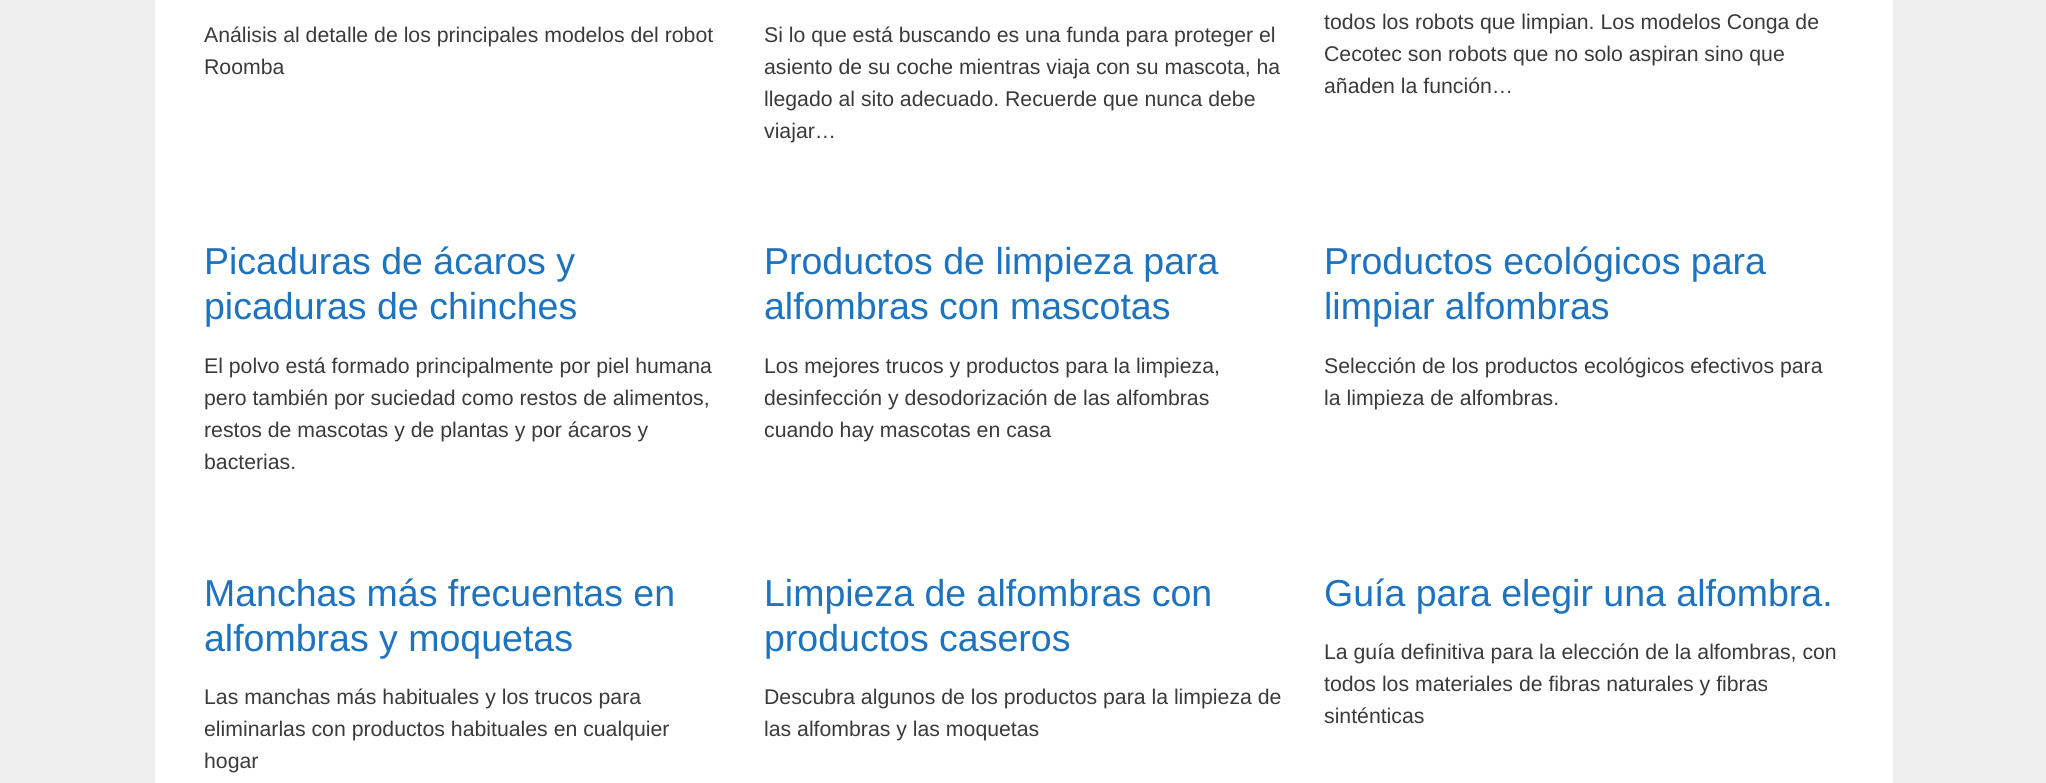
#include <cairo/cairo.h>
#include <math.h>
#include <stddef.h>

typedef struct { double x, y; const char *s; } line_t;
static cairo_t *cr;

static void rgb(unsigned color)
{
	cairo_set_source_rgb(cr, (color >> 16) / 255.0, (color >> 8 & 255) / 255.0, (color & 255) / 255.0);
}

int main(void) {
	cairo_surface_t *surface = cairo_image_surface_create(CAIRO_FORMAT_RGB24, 2046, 783);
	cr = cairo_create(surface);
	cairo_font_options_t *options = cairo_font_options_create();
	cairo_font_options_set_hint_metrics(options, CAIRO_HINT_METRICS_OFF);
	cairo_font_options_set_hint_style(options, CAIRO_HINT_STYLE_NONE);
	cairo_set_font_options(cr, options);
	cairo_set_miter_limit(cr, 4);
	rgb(0xefefef);
	cairo_paint(cr);
	rgb(0xffffff);
	cairo_rectangle(cr, 155, 0, 1738, 783);
	cairo_fill(cr);
	cairo_select_font_face(cr, "Liberation Sans", CAIRO_FONT_SLANT_NORMAL, CAIRO_FONT_WEIGHT_NORMAL);
	cairo_set_font_size(cr, 21.25);
	rgb(0x3a3a3a);
	{
		static const line_t items[] = {
			{204, 42, "Análisis al detalle de los principales modelos del robot"},
			{204, 74, "Roomba"},
			{764, 42, "Si lo que está buscando es una funda para proteger el"},
			{764, 74, "asiento de su coche mientras viaja con su mascota, ha"},
			{764, 106, "llegado al sito adecuado. Recuerde que nunca debe"},
			{764, 138, "viajar…"},
			{1324, 29, "todos los robots que limpian. Los modelos Conga de"},
			{1324, 61, "Cecotec son robots que no solo aspiran sino que"},
			{1324, 93, "añaden la función…"},
		};
		for (size_t i = 0; i < sizeof items / sizeof *items; i++) {
			cairo_move_to(cr, items[i].x, items[i].y);
			cairo_show_text(cr, items[i].s);
		}
	}
	cairo_set_font_size(cr, 37.5);
	rgb(0x1e73be);
	cairo_move_to(cr, 204, 274);
	cairo_show_text(cr, "Picaduras de ácaros y");
	cairo_move_to(cr, 204, 319);
	cairo_show_text(cr, "picaduras de chinches");
	cairo_set_font_size(cr, 21.25);
	rgb(0x3a3a3a);
	{
		static const line_t items[] = {
			{204, 373, "El polvo está formado principalmente por piel humana"},
			{204, 405, "pero también por suciedad como restos de alimentos,"},
			{204, 437, "restos de mascotas y de plantas y por ácaros y"},
			{204, 469, "bacterias."},
		};
		for (size_t i = 0; i < sizeof items / sizeof *items; i++) {
			cairo_move_to(cr, items[i].x, items[i].y);
			cairo_show_text(cr, items[i].s);
		}
	}
	cairo_set_font_size(cr, 37.5);
	rgb(0x1e73be);
	cairo_move_to(cr, 764, 274);
	cairo_show_text(cr, "Productos de limpieza para");
	cairo_move_to(cr, 764, 319);
	cairo_show_text(cr, "alfombras con mascotas");
	cairo_set_font_size(cr, 21.25);
	rgb(0x3a3a3a);
	{
		static const line_t items[] = {
			{764, 373, "Los mejores trucos y productos para la limpieza,"},
			{764, 405, "desinfección y desodorización de las alfombras"},
			{764, 437, "cuando hay mascotas en casa"},
		};
		for (size_t i = 0; i < sizeof items / sizeof *items; i++) {
			cairo_move_to(cr, items[i].x, items[i].y);
			cairo_show_text(cr, items[i].s);
		}
	}
	cairo_set_font_size(cr, 37.5);
	rgb(0x1e73be);
	cairo_move_to(cr, 1324, 274);
	cairo_show_text(cr, "Productos ecológicos para");
	cairo_move_to(cr, 1324, 319);
	cairo_show_text(cr, "limpiar alfombras");
	cairo_set_font_size(cr, 21.25);
	rgb(0x3a3a3a);
	cairo_move_to(cr, 1324, 373);
	cairo_show_text(cr, "Selección de los productos ecológicos efectivos para");
	cairo_move_to(cr, 1324, 405);
	cairo_show_text(cr, "la limpieza de alfombras.");
	cairo_set_font_size(cr, 37.5);
	rgb(0x1e73be);
	cairo_move_to(cr, 204, 606);
	cairo_show_text(cr, "Manchas más frecuentas en");
	cairo_move_to(cr, 204, 651);
	cairo_show_text(cr, "alfombras y moquetas");
	cairo_set_font_size(cr, 21.25);
	rgb(0x3a3a3a);
	{
		static const line_t items[] = {
			{204, 704, "Las manchas más habituales y los trucos para"},
			{204, 736, "eliminarlas con productos habituales en cualquier"},
			{204, 768, "hogar"},
		};
		for (size_t i = 0; i < sizeof items / sizeof *items; i++) {
			cairo_move_to(cr, items[i].x, items[i].y);
			cairo_show_text(cr, items[i].s);
		}
	}
	cairo_set_font_size(cr, 37.5);
	rgb(0x1e73be);
	cairo_move_to(cr, 764, 606);
	cairo_show_text(cr, "Limpieza de alfombras con");
	cairo_move_to(cr, 764, 651);
	cairo_show_text(cr, "productos caseros");
	cairo_set_font_size(cr, 21.25);
	rgb(0x3a3a3a);
	cairo_move_to(cr, 764, 704);
	cairo_show_text(cr, "Descubra algunos de los productos para la limpieza de");
	cairo_move_to(cr, 764, 736);
	cairo_show_text(cr, "las alfombras y las moquetas");
	cairo_set_font_size(cr, 37.5);
	rgb(0x1e73be);
	cairo_move_to(cr, 1324, 606);
	cairo_show_text(cr, "Guía para elegir una alfombra.");
	cairo_set_font_size(cr, 21.25);
	rgb(0x3a3a3a);
	{
		static const line_t items[] = {
			{1324, 659, "La guía definitiva para la elección de la alfombras, con"},
			{1324, 691, "todos los materiales de fibras naturales y fibras"},
			{1324, 723, "sinténticas"},
		};
		for (size_t i = 0; i < sizeof items / sizeof *items; i++) {
			cairo_move_to(cr, items[i].x, items[i].y);
			cairo_show_text(cr, items[i].s);
		}
	}
	cairo_surface_write_to_png(surface, "page.png");
	cairo_font_options_destroy(options);
	cairo_destroy(cr);
	cairo_surface_destroy(surface);
	return 0;
}
